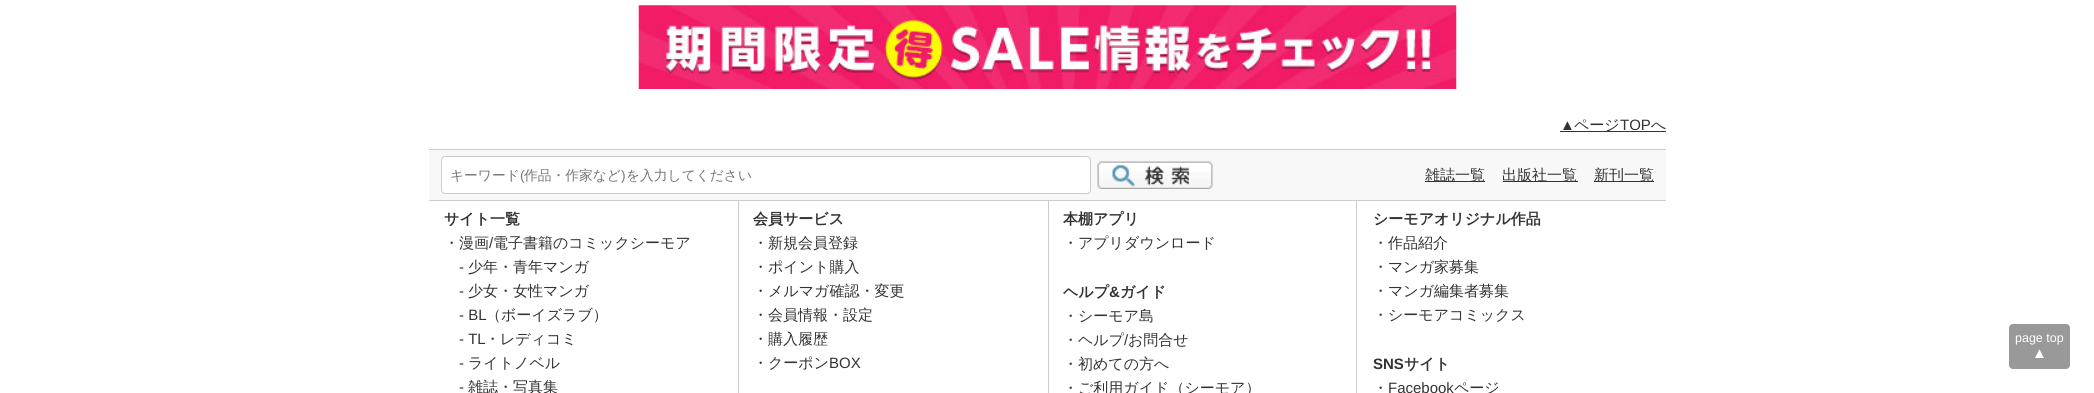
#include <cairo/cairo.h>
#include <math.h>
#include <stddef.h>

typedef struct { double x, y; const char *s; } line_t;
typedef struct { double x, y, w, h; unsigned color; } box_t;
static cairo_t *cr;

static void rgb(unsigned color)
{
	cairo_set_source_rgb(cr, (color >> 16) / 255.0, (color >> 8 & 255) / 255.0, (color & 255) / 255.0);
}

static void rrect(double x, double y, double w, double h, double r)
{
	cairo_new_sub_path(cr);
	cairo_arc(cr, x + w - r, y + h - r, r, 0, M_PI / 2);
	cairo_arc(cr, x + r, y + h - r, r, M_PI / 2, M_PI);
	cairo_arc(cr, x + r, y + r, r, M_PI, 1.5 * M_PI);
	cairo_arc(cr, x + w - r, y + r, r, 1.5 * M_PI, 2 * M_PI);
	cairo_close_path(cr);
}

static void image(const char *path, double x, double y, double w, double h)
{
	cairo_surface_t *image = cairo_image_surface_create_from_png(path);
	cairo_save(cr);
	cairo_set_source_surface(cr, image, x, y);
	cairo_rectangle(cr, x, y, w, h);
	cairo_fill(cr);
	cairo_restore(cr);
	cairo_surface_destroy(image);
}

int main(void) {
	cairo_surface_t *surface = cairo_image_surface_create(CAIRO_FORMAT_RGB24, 2094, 393);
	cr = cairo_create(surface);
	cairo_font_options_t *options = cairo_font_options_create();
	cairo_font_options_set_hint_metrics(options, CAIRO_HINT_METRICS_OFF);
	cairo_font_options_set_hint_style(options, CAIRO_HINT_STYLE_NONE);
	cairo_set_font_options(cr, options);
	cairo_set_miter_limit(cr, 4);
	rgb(0xffffff);
	cairo_paint(cr);
	image("img/1.png", 638, 5, 819, 84);
	{
		static const box_t items[] = {
			{1560, 131, 106, 1, 0x333333},
			{429, 150, 1237, 50, 0xf8f8f8},
			{429, 149, 1237, 1, 0xcccccc},
		};
		for (size_t i = 0; i < sizeof items / sizeof *items; i++) {
			rgb(items[i].color);
			cairo_rectangle(cr, items[i].x, items[i].y, items[i].w, items[i].h);
			cairo_fill(cr);
		}
	}
	rgb(0xffffff);
	rrect(441.5, 156.5, 649, 37, 3.5);
	cairo_fill_preserve(cr);
	rgb(0xcccccc);
	cairo_set_line_width(cr, 1);
	cairo_stroke(cr);
	image("img/2.png", 1097, 161, 116, 28);
	{
		static const box_t items[] = {
			{1425, 181, 60, 1, 0x333333},
			{1503, 181, 75, 1, 0x333333},
			{1594, 181, 60, 1, 0x333333},
			{429, 200, 1237, 1, 0xcccccc},
			{738, 201, 1, 192, 0xcccccc},
			{1048, 201, 1, 192, 0xcccccc},
			{1356, 201, 1, 192, 0xcccccc},
		};
		for (size_t i = 0; i < sizeof items / sizeof *items; i++) {
			rgb(items[i].color);
			cairo_rectangle(cr, items[i].x, items[i].y, items[i].w, items[i].h);
			cairo_fill(cr);
		}
	}
	rgb(0x999999);
	rrect(2009, 324, 61, 45, 4);
	cairo_fill(cr);
	cairo_select_font_face(cr, "Liberation Sans", CAIRO_FONT_SLANT_NORMAL, CAIRO_FONT_WEIGHT_NORMAL);
	cairo_set_font_size(cr, 15);
	rgb(0x333333);
	cairo_move_to(cr, 1560, 130);
	cairo_show_text(cr, "▲");
	cairo_select_font_face(cr, "WenQuanYi Zen Hei Medium", CAIRO_FONT_SLANT_NORMAL, CAIRO_FONT_WEIGHT_NORMAL);
	cairo_move_to(cr, 1574, 130);
	cairo_show_text(cr, "ページ");
	cairo_select_font_face(cr, "Liberation Sans", CAIRO_FONT_SLANT_NORMAL, CAIRO_FONT_WEIGHT_NORMAL);
	cairo_move_to(cr, 1620, 130);
	cairo_show_text(cr, "TOP");
	cairo_select_font_face(cr, "WenQuanYi Zen Hei Medium", CAIRO_FONT_SLANT_NORMAL, CAIRO_FONT_WEIGHT_NORMAL);
	cairo_move_to(cr, 1651, 130);
	cairo_show_text(cr, "へ");
	cairo_set_font_size(cr, 13.75);
	rgb(0x757575);
	cairo_move_to(cr, 450, 180);
	cairo_show_text(cr, "キーワード");
	cairo_select_font_face(cr, "Liberation Sans", CAIRO_FONT_SLANT_NORMAL, CAIRO_FONT_WEIGHT_NORMAL);
	cairo_move_to(cr, 520, 180);
	cairo_show_text(cr, "(");
	cairo_select_font_face(cr, "WenQuanYi Zen Hei Medium", CAIRO_FONT_SLANT_NORMAL, CAIRO_FONT_WEIGHT_NORMAL);
	cairo_move_to(cr, 524, 180);
	cairo_show_text(cr, "作品・作家など");
	cairo_select_font_face(cr, "Liberation Sans", CAIRO_FONT_SLANT_NORMAL, CAIRO_FONT_WEIGHT_NORMAL);
	cairo_move_to(cr, 621, 180);
	cairo_show_text(cr, ")");
	cairo_select_font_face(cr, "WenQuanYi Zen Hei Medium", CAIRO_FONT_SLANT_NORMAL, CAIRO_FONT_WEIGHT_NORMAL);
	cairo_move_to(cr, 626, 180);
	cairo_show_text(cr, "を入力してください");
	cairo_set_font_size(cr, 15);
	rgb(0x333333);
	{
		static const line_t items[] = {
			{1425, 180, "雑誌一覧"},
			{1502, 180, "出版社一覧"},
			{1594, 180, "新刊一覧"},
		};
		for (size_t i = 0; i < sizeof items / sizeof *items; i++) {
			cairo_move_to(cr, items[i].x, items[i].y);
			cairo_show_text(cr, items[i].s);
		}
	}
	cairo_select_font_face(cr, "WenQuanYi Zen Hei", CAIRO_FONT_SLANT_NORMAL, CAIRO_FONT_WEIGHT_BOLD);
	cairo_move_to(cr, 444, 224);
	cairo_show_text(cr, "サイト一覧");
	cairo_select_font_face(cr, "WenQuanYi Zen Hei Medium", CAIRO_FONT_SLANT_NORMAL, CAIRO_FONT_WEIGHT_NORMAL);
	cairo_move_to(cr, 444, 248);
	cairo_show_text(cr, "・漫画");
	cairo_select_font_face(cr, "Liberation Sans", CAIRO_FONT_SLANT_NORMAL, CAIRO_FONT_WEIGHT_NORMAL);
	cairo_move_to(cr, 489, 248);
	cairo_show_text(cr, "/");
	cairo_select_font_face(cr, "WenQuanYi Zen Hei Medium", CAIRO_FONT_SLANT_NORMAL, CAIRO_FONT_WEIGHT_NORMAL);
	cairo_move_to(cr, 493, 248);
	cairo_show_text(cr, "電子書籍のコミックシーモア");
	cairo_select_font_face(cr, "Liberation Sans", CAIRO_FONT_SLANT_NORMAL, CAIRO_FONT_WEIGHT_NORMAL);
	cairo_move_to(cr, 459, 272);
	cairo_show_text(cr, "-");
	cairo_select_font_face(cr, "WenQuanYi Zen Hei Medium", CAIRO_FONT_SLANT_NORMAL, CAIRO_FONT_WEIGHT_NORMAL);
	cairo_move_to(cr, 468, 272);
	cairo_show_text(cr, "少年・青年マンガ");
	cairo_select_font_face(cr, "Liberation Sans", CAIRO_FONT_SLANT_NORMAL, CAIRO_FONT_WEIGHT_NORMAL);
	cairo_move_to(cr, 459, 296);
	cairo_show_text(cr, "-");
	cairo_select_font_face(cr, "WenQuanYi Zen Hei Medium", CAIRO_FONT_SLANT_NORMAL, CAIRO_FONT_WEIGHT_NORMAL);
	cairo_move_to(cr, 468, 296);
	cairo_show_text(cr, "少女・女性マンガ");
	cairo_select_font_face(cr, "Liberation Sans", CAIRO_FONT_SLANT_NORMAL, CAIRO_FONT_WEIGHT_NORMAL);
	cairo_move_to(cr, 459, 320);
	cairo_show_text(cr, "- BL");
	cairo_select_font_face(cr, "WenQuanYi Zen Hei Medium", CAIRO_FONT_SLANT_NORMAL, CAIRO_FONT_WEIGHT_NORMAL);
	cairo_move_to(cr, 486, 320);
	cairo_show_text(cr, "（ボーイズラブ）");
	cairo_select_font_face(cr, "Liberation Sans", CAIRO_FONT_SLANT_NORMAL, CAIRO_FONT_WEIGHT_NORMAL);
	cairo_move_to(cr, 459, 344);
	cairo_show_text(cr, "- TL");
	cairo_select_font_face(cr, "WenQuanYi Zen Hei Medium", CAIRO_FONT_SLANT_NORMAL, CAIRO_FONT_WEIGHT_NORMAL);
	cairo_move_to(cr, 485, 344);
	cairo_show_text(cr, "・レディコミ");
	cairo_select_font_face(cr, "Liberation Sans", CAIRO_FONT_SLANT_NORMAL, CAIRO_FONT_WEIGHT_NORMAL);
	cairo_move_to(cr, 459, 368);
	cairo_show_text(cr, "-");
	cairo_select_font_face(cr, "WenQuanYi Zen Hei Medium", CAIRO_FONT_SLANT_NORMAL, CAIRO_FONT_WEIGHT_NORMAL);
	cairo_move_to(cr, 468, 368);
	cairo_show_text(cr, "ライトノベル");
	cairo_select_font_face(cr, "Liberation Sans", CAIRO_FONT_SLANT_NORMAL, CAIRO_FONT_WEIGHT_NORMAL);
	cairo_move_to(cr, 459, 392);
	cairo_show_text(cr, "-");
	cairo_select_font_face(cr, "WenQuanYi Zen Hei Medium", CAIRO_FONT_SLANT_NORMAL, CAIRO_FONT_WEIGHT_NORMAL);
	cairo_move_to(cr, 468, 392);
	cairo_show_text(cr, "雑誌・写真集");
	cairo_select_font_face(cr, "WenQuanYi Zen Hei", CAIRO_FONT_SLANT_NORMAL, CAIRO_FONT_WEIGHT_BOLD);
	cairo_move_to(cr, 753, 224);
	cairo_show_text(cr, "会員サービス");
	cairo_select_font_face(cr, "WenQuanYi Zen Hei Medium", CAIRO_FONT_SLANT_NORMAL, CAIRO_FONT_WEIGHT_NORMAL);
	{
		static const line_t items[] = {
			{753, 248, "・新規会員登録"},
			{753, 272, "・ポイント購入"},
			{753, 296, "・メルマガ確認・変更"},
			{753, 320, "・会員情報・設定"},
			{753, 344, "・購入履歴"},
			{753, 368, "・クーポン"},
		};
		for (size_t i = 0; i < sizeof items / sizeof *items; i++) {
			cairo_move_to(cr, items[i].x, items[i].y);
			cairo_show_text(cr, items[i].s);
		}
	}
	cairo_select_font_face(cr, "Liberation Sans", CAIRO_FONT_SLANT_NORMAL, CAIRO_FONT_WEIGHT_NORMAL);
	cairo_move_to(cr, 829, 368);
	cairo_show_text(cr, "BOX");
	cairo_select_font_face(cr, "WenQuanYi Zen Hei", CAIRO_FONT_SLANT_NORMAL, CAIRO_FONT_WEIGHT_BOLD);
	cairo_move_to(cr, 1063, 224);
	cairo_show_text(cr, "本棚アプリ");
	cairo_select_font_face(cr, "WenQuanYi Zen Hei Medium", CAIRO_FONT_SLANT_NORMAL, CAIRO_FONT_WEIGHT_NORMAL);
	cairo_move_to(cr, 1063, 248);
	cairo_show_text(cr, "・アプリダウンロード");
	cairo_select_font_face(cr, "WenQuanYi Zen Hei", CAIRO_FONT_SLANT_NORMAL, CAIRO_FONT_WEIGHT_BOLD);
	cairo_move_to(cr, 1063, 297);
	cairo_show_text(cr, "ヘルプ");
	cairo_select_font_face(cr, "Liberation Sans", CAIRO_FONT_SLANT_NORMAL, CAIRO_FONT_WEIGHT_BOLD);
	cairo_move_to(cr, 1109, 297);
	cairo_show_text(cr, "&");
	cairo_select_font_face(cr, "WenQuanYi Zen Hei", CAIRO_FONT_SLANT_NORMAL, CAIRO_FONT_WEIGHT_BOLD);
	cairo_move_to(cr, 1120, 297);
	cairo_show_text(cr, "ガイド");
	cairo_select_font_face(cr, "WenQuanYi Zen Hei Medium", CAIRO_FONT_SLANT_NORMAL, CAIRO_FONT_WEIGHT_NORMAL);
	cairo_move_to(cr, 1063, 321);
	cairo_show_text(cr, "・シーモア島");
	cairo_move_to(cr, 1063, 345);
	cairo_show_text(cr, "・ヘルプ");
	cairo_select_font_face(cr, "Liberation Sans", CAIRO_FONT_SLANT_NORMAL, CAIRO_FONT_WEIGHT_NORMAL);
	cairo_move_to(cr, 1124, 345);
	cairo_show_text(cr, "/");
	cairo_select_font_face(cr, "WenQuanYi Zen Hei Medium", CAIRO_FONT_SLANT_NORMAL, CAIRO_FONT_WEIGHT_NORMAL);
	{
		static const line_t items[] = {
			{1128, 345, "お問合せ"},
			{1063, 369, "・初めての方へ"},
			{1063, 393, "・ご利用ガイド（シーモア）"},
		};
		for (size_t i = 0; i < sizeof items / sizeof *items; i++) {
			cairo_move_to(cr, items[i].x, items[i].y);
			cairo_show_text(cr, items[i].s);
		}
	}
	cairo_select_font_face(cr, "WenQuanYi Zen Hei", CAIRO_FONT_SLANT_NORMAL, CAIRO_FONT_WEIGHT_BOLD);
	cairo_move_to(cr, 1373, 224);
	cairo_show_text(cr, "シーモアオリジナル作品");
	cairo_select_font_face(cr, "WenQuanYi Zen Hei Medium", CAIRO_FONT_SLANT_NORMAL, CAIRO_FONT_WEIGHT_NORMAL);
	{
		static const line_t items[] = {
			{1373, 248, "・作品紹介"},
			{1373, 272, "・マンガ家募集"},
			{1373, 296, "・マンガ編集者募集"},
			{1373, 320, "・シーモアコミックス"},
		};
		for (size_t i = 0; i < sizeof items / sizeof *items; i++) {
			cairo_move_to(cr, items[i].x, items[i].y);
			cairo_show_text(cr, items[i].s);
		}
	}
	cairo_select_font_face(cr, "Liberation Sans", CAIRO_FONT_SLANT_NORMAL, CAIRO_FONT_WEIGHT_BOLD);
	cairo_move_to(cr, 1373, 369);
	cairo_show_text(cr, "SNS");
	cairo_select_font_face(cr, "WenQuanYi Zen Hei", CAIRO_FONT_SLANT_NORMAL, CAIRO_FONT_WEIGHT_BOLD);
	cairo_move_to(cr, 1404, 369);
	cairo_show_text(cr, "サイト");
	cairo_select_font_face(cr, "WenQuanYi Zen Hei Medium", CAIRO_FONT_SLANT_NORMAL, CAIRO_FONT_WEIGHT_NORMAL);
	cairo_move_to(cr, 1373, 393);
	cairo_show_text(cr, "・");
	cairo_select_font_face(cr, "Liberation Sans", CAIRO_FONT_SLANT_NORMAL, CAIRO_FONT_WEIGHT_NORMAL);
	cairo_move_to(cr, 1388, 393);
	cairo_show_text(cr, "Facebook");
	cairo_select_font_face(cr, "WenQuanYi Zen Hei Medium", CAIRO_FONT_SLANT_NORMAL, CAIRO_FONT_WEIGHT_NORMAL);
	cairo_move_to(cr, 1454, 393);
	cairo_show_text(cr, "ページ");
	cairo_select_font_face(cr, "Liberation Sans", CAIRO_FONT_SLANT_NORMAL, CAIRO_FONT_WEIGHT_NORMAL);
	cairo_set_font_size(cr, 12.5);
	rgb(0xffffff);
	cairo_move_to(cr, 2015, 342);
	cairo_show_text(cr, "page top");
	cairo_set_font_size(cr, 15);
	cairo_move_to(cr, 2032, 358);
	cairo_show_text(cr, "▲");
	cairo_surface_write_to_png(surface, "page.png");
	cairo_font_options_destroy(options);
	cairo_destroy(cr);
	cairo_surface_destroy(surface);
	return 0;
}
